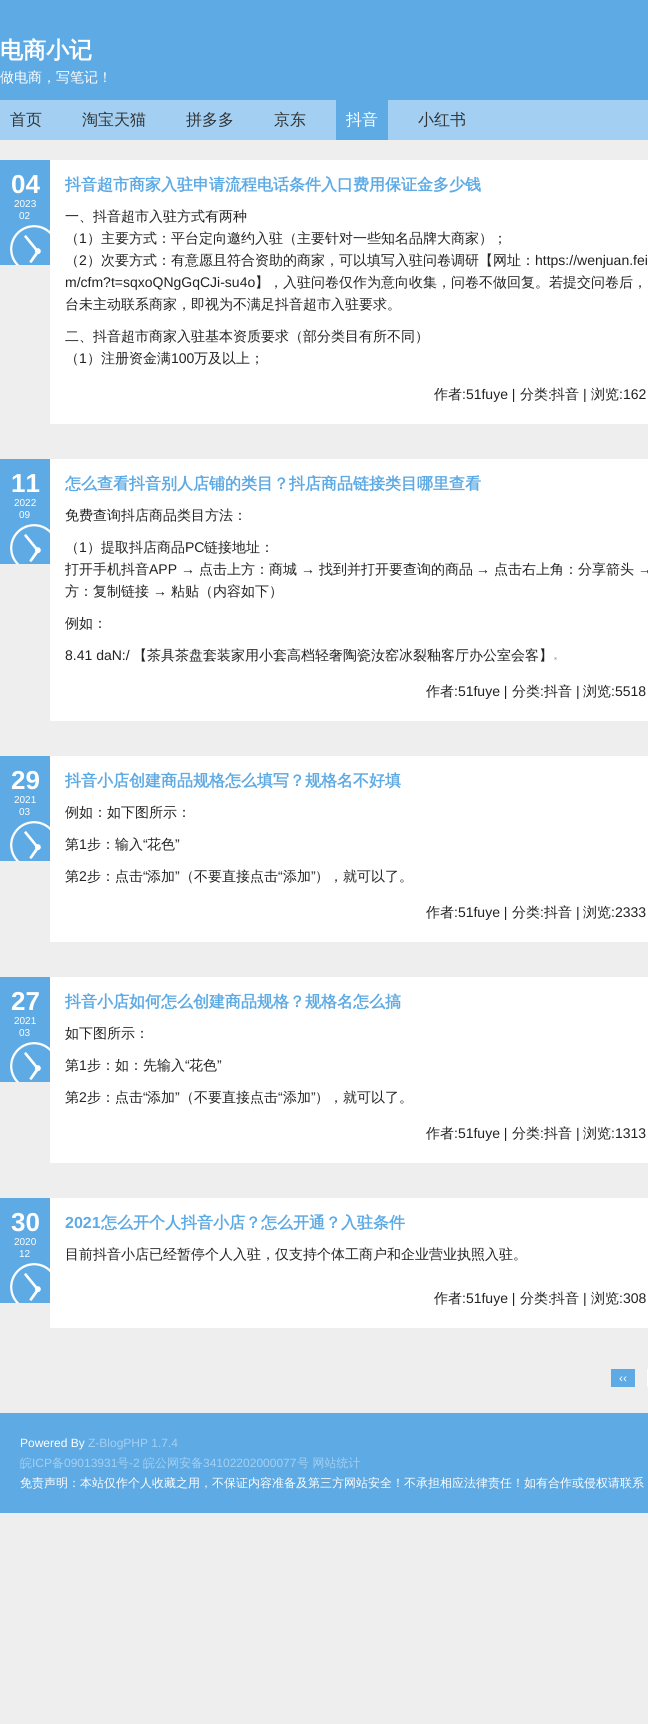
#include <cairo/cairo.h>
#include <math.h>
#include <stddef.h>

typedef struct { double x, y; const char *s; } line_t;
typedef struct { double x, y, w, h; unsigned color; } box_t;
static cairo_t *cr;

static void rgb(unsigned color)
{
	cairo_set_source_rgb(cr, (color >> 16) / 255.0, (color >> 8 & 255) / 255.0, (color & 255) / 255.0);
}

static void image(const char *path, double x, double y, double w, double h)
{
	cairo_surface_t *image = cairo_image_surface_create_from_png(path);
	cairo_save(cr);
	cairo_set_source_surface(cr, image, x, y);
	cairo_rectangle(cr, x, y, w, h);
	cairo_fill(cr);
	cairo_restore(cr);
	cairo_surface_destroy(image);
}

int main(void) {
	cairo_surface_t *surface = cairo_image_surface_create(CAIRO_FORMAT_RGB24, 648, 1724);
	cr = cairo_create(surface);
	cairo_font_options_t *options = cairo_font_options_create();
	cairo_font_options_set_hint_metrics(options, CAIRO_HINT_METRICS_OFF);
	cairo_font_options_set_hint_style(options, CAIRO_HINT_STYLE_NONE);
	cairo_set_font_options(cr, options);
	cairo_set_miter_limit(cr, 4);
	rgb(0xeeeeee);
	cairo_paint(cr);
	{
		static const box_t items[] = {
			{0, 0, 648, 100, 0x5eaae4},
			{0, 100, 648, 40, 0xa3d0f2},
			{336, 100, 52, 40, 0x5eaae4},
			{0, 160, 50, 105, 0x5eaae4},
		};
		for (size_t i = 0; i < sizeof items / sizeof *items; i++) {
			rgb(items[i].color);
			cairo_rectangle(cr, items[i].x, items[i].y, items[i].w, items[i].h);
			cairo_fill(cr);
		}
	}
	image("img/1.png", 10, 225, 40, 40);
	rgb(0xffffff);
	cairo_rectangle(cr, 50, 160, 598, 264);
	cairo_fill(cr);
	rgb(0x5eaae4);
	cairo_rectangle(cr, 0, 459, 50, 105);
	cairo_fill(cr);
	image("img/1.png", 10, 524, 40, 40);
	rgb(0xffffff);
	cairo_rectangle(cr, 50, 459, 598, 262);
	cairo_fill(cr);
	image("img/2.png", 555, 658, 1, 1);
	cairo_rectangle(cr, 554.5, 657.5, 2, 2);
	rgb(0xdddddd);
	cairo_set_line_width(cr, 1);
	cairo_stroke(cr);
	rgb(0x5eaae4);
	cairo_rectangle(cr, 0, 756, 50, 105);
	cairo_fill(cr);
	image("img/1.png", 10, 821, 40, 40);
	rgb(0xffffff);
	cairo_rectangle(cr, 50, 756, 598, 186);
	cairo_fill(cr);
	rgb(0x5eaae4);
	cairo_rectangle(cr, 0, 977, 50, 105);
	cairo_fill(cr);
	image("img/1.png", 10, 1042, 40, 40);
	rgb(0xffffff);
	cairo_rectangle(cr, 50, 977, 598, 186);
	cairo_fill(cr);
	rgb(0x5eaae4);
	cairo_rectangle(cr, 0, 1198, 50, 105);
	cairo_fill(cr);
	image("img/1.png", 10, 1263, 40, 40);
	{
		static const box_t items[] = {
			{50, 1198, 598, 130, 0xffffff},
			{611, 1369, 24, 18, 0x5eaae4},
			{647, 1369, 1, 18, 0xffffff},
			{0, 1413, 648, 100, 0x5eaae4},
		};
		for (size_t i = 0; i < sizeof items / sizeof *items; i++) {
			rgb(items[i].color);
			cairo_rectangle(cr, items[i].x, items[i].y, items[i].w, items[i].h);
			cairo_fill(cr);
		}
	}
	cairo_select_font_face(cr, "WenQuanYi Zen Hei", CAIRO_FONT_SLANT_NORMAL, CAIRO_FONT_WEIGHT_BOLD);
	cairo_set_font_size(cr, 23);
	rgb(0xffffff);
	cairo_move_to(cr, 0, 58);
	cairo_show_text(cr, "电商小记");
	cairo_select_font_face(cr, "WenQuanYi Zen Hei Medium", CAIRO_FONT_SLANT_NORMAL, CAIRO_FONT_WEIGHT_NORMAL);
	cairo_set_font_size(cr, 14);
	cairo_move_to(cr, 0, 82);
	cairo_show_text(cr, "做电商，写笔记！");
	cairo_set_font_size(cr, 16);
	rgb(0x333333);
	{
		static const line_t items[] = {
			{10, 125, "首页"},
			{82, 125, "淘宝天猫"},
			{186, 125, "拼多多"},
			{274, 125, "京东"},
		};
		for (size_t i = 0; i < sizeof items / sizeof *items; i++) {
			cairo_move_to(cr, items[i].x, items[i].y);
			cairo_show_text(cr, items[i].s);
		}
	}
	rgb(0xffffff);
	cairo_move_to(cr, 346, 125);
	cairo_show_text(cr, "抖音");
	rgb(0x333333);
	cairo_move_to(cr, 418, 125);
	cairo_show_text(cr, "小红书");
	cairo_select_font_face(cr, "Liberation Sans", CAIRO_FONT_SLANT_NORMAL, CAIRO_FONT_WEIGHT_BOLD);
	cairo_set_font_size(cr, 26);
	rgb(0xffffff);
	cairo_move_to(cr, 11, 193);
	cairo_show_text(cr, "04");
	cairo_select_font_face(cr, "Liberation Sans", CAIRO_FONT_SLANT_NORMAL, CAIRO_FONT_WEIGHT_NORMAL);
	cairo_set_font_size(cr, 10);
	cairo_move_to(cr, 14, 207);
	cairo_show_text(cr, "2023");
	cairo_move_to(cr, 19, 219);
	cairo_show_text(cr, "02");
	cairo_select_font_face(cr, "WenQuanYi Zen Hei", CAIRO_FONT_SLANT_NORMAL, CAIRO_FONT_WEIGHT_BOLD);
	cairo_set_font_size(cr, 16);
	rgb(0x5eaae4);
	cairo_move_to(cr, 65, 190);
	cairo_show_text(cr, "抖音超市商家入驻申请流程电话条件入口费用保证金多少钱");
	cairo_select_font_face(cr, "WenQuanYi Zen Hei Medium", CAIRO_FONT_SLANT_NORMAL, CAIRO_FONT_WEIGHT_NORMAL);
	cairo_set_font_size(cr, 14);
	rgb(0x222222);
	cairo_move_to(cr, 65, 221);
	cairo_show_text(cr, "一、抖音超市入驻方式有两种");
	cairo_move_to(cr, 65, 243);
	cairo_show_text(cr, "（");
	cairo_select_font_face(cr, "Liberation Sans", CAIRO_FONT_SLANT_NORMAL, CAIRO_FONT_WEIGHT_NORMAL);
	cairo_move_to(cr, 79, 243);
	cairo_show_text(cr, "1");
	cairo_select_font_face(cr, "WenQuanYi Zen Hei Medium", CAIRO_FONT_SLANT_NORMAL, CAIRO_FONT_WEIGHT_NORMAL);
	cairo_move_to(cr, 87, 243);
	cairo_show_text(cr, "）主要方式：平台定向邀约入驻（主要针对一些知名品牌大商家）；");
	cairo_move_to(cr, 65, 265);
	cairo_show_text(cr, "（");
	cairo_select_font_face(cr, "Liberation Sans", CAIRO_FONT_SLANT_NORMAL, CAIRO_FONT_WEIGHT_NORMAL);
	cairo_move_to(cr, 79, 265);
	cairo_show_text(cr, "2");
	cairo_select_font_face(cr, "WenQuanYi Zen Hei Medium", CAIRO_FONT_SLANT_NORMAL, CAIRO_FONT_WEIGHT_NORMAL);
	cairo_move_to(cr, 87, 265);
	cairo_show_text(cr, "）次要方式：有意愿且符合资助的商家，可以填写入驻问卷调研【网址：");
	cairo_select_font_face(cr, "Liberation Sans", CAIRO_FONT_SLANT_NORMAL, CAIRO_FONT_WEIGHT_NORMAL);
	cairo_move_to(cr, 535, 265);
	cairo_show_text(cr, "https://wenjuan.fei");
	cairo_move_to(cr, 65, 287);
	cairo_show_text(cr, "m/cfm?t=sqxoQNgGqCJi-su4o");
	cairo_select_font_face(cr, "WenQuanYi Zen Hei Medium", CAIRO_FONT_SLANT_NORMAL, CAIRO_FONT_WEIGHT_NORMAL);
	{
		static const line_t items[] = {
			{255, 287, "】，入驻问卷仅作为意向收集，问卷不做回复。若提交问卷后，"},
			{65, 309, "台未主动联系商家，即视为不满足抖音超市入驻要求。"},
			{65, 341, "二、抖音超市商家入驻基本资质要求（部分类目有所不同）"},
			{65, 363, "（"},
		};
		for (size_t i = 0; i < sizeof items / sizeof *items; i++) {
			cairo_move_to(cr, items[i].x, items[i].y);
			cairo_show_text(cr, items[i].s);
		}
	}
	cairo_select_font_face(cr, "Liberation Sans", CAIRO_FONT_SLANT_NORMAL, CAIRO_FONT_WEIGHT_NORMAL);
	cairo_move_to(cr, 79, 363);
	cairo_show_text(cr, "1");
	cairo_select_font_face(cr, "WenQuanYi Zen Hei Medium", CAIRO_FONT_SLANT_NORMAL, CAIRO_FONT_WEIGHT_NORMAL);
	cairo_move_to(cr, 87, 363);
	cairo_show_text(cr, "）注册资金满");
	cairo_select_font_face(cr, "Liberation Sans", CAIRO_FONT_SLANT_NORMAL, CAIRO_FONT_WEIGHT_NORMAL);
	cairo_move_to(cr, 171, 363);
	cairo_show_text(cr, "100");
	cairo_select_font_face(cr, "WenQuanYi Zen Hei Medium", CAIRO_FONT_SLANT_NORMAL, CAIRO_FONT_WEIGHT_NORMAL);
	cairo_move_to(cr, 194, 363);
	cairo_show_text(cr, "万及以上；");
	cairo_move_to(cr, 434, 399);
	cairo_show_text(cr, "作者");
	cairo_select_font_face(cr, "Liberation Sans", CAIRO_FONT_SLANT_NORMAL, CAIRO_FONT_WEIGHT_NORMAL);
	cairo_move_to(cr, 462, 399);
	cairo_show_text(cr, ":51fuye |");
	cairo_select_font_face(cr, "WenQuanYi Zen Hei Medium", CAIRO_FONT_SLANT_NORMAL, CAIRO_FONT_WEIGHT_NORMAL);
	cairo_move_to(cr, 520, 399);
	cairo_show_text(cr, "分类");
	cairo_select_font_face(cr, "Liberation Sans", CAIRO_FONT_SLANT_NORMAL, CAIRO_FONT_WEIGHT_NORMAL);
	cairo_move_to(cr, 548, 399);
	cairo_show_text(cr, ":");
	cairo_select_font_face(cr, "WenQuanYi Zen Hei Medium", CAIRO_FONT_SLANT_NORMAL, CAIRO_FONT_WEIGHT_NORMAL);
	cairo_move_to(cr, 551, 399);
	cairo_show_text(cr, "抖音");
	cairo_select_font_face(cr, "Liberation Sans", CAIRO_FONT_SLANT_NORMAL, CAIRO_FONT_WEIGHT_NORMAL);
	cairo_move_to(cr, 583, 399);
	cairo_show_text(cr, "|");
	cairo_select_font_face(cr, "WenQuanYi Zen Hei Medium", CAIRO_FONT_SLANT_NORMAL, CAIRO_FONT_WEIGHT_NORMAL);
	cairo_move_to(cr, 591, 399);
	cairo_show_text(cr, "浏览");
	cairo_select_font_face(cr, "Liberation Sans", CAIRO_FONT_SLANT_NORMAL, CAIRO_FONT_WEIGHT_NORMAL);
	cairo_move_to(cr, 619, 399);
	cairo_show_text(cr, ":162");
	cairo_select_font_face(cr, "Liberation Sans", CAIRO_FONT_SLANT_NORMAL, CAIRO_FONT_WEIGHT_BOLD);
	cairo_set_font_size(cr, 26);
	rgb(0xffffff);
	cairo_move_to(cr, 11, 492);
	cairo_show_text(cr, "11");
	cairo_select_font_face(cr, "Liberation Sans", CAIRO_FONT_SLANT_NORMAL, CAIRO_FONT_WEIGHT_NORMAL);
	cairo_set_font_size(cr, 10);
	cairo_move_to(cr, 14, 506);
	cairo_show_text(cr, "2022");
	cairo_move_to(cr, 19, 518);
	cairo_show_text(cr, "09");
	cairo_select_font_face(cr, "WenQuanYi Zen Hei", CAIRO_FONT_SLANT_NORMAL, CAIRO_FONT_WEIGHT_BOLD);
	cairo_set_font_size(cr, 16);
	rgb(0x5eaae4);
	cairo_move_to(cr, 65, 489);
	cairo_show_text(cr, "怎么查看抖音别人店铺的类目？抖店商品链接类目哪里查看");
	cairo_select_font_face(cr, "WenQuanYi Zen Hei Medium", CAIRO_FONT_SLANT_NORMAL, CAIRO_FONT_WEIGHT_NORMAL);
	cairo_set_font_size(cr, 14);
	rgb(0x222222);
	cairo_move_to(cr, 65, 520);
	cairo_show_text(cr, "免费查询抖店商品类目方法：");
	cairo_move_to(cr, 65, 552);
	cairo_show_text(cr, "（");
	cairo_select_font_face(cr, "Liberation Sans", CAIRO_FONT_SLANT_NORMAL, CAIRO_FONT_WEIGHT_NORMAL);
	cairo_move_to(cr, 79, 552);
	cairo_show_text(cr, "1");
	cairo_select_font_face(cr, "WenQuanYi Zen Hei Medium", CAIRO_FONT_SLANT_NORMAL, CAIRO_FONT_WEIGHT_NORMAL);
	cairo_move_to(cr, 87, 552);
	cairo_show_text(cr, "）提取抖店商品");
	cairo_select_font_face(cr, "Liberation Sans", CAIRO_FONT_SLANT_NORMAL, CAIRO_FONT_WEIGHT_NORMAL);
	cairo_move_to(cr, 185, 552);
	cairo_show_text(cr, "PC");
	cairo_select_font_face(cr, "WenQuanYi Zen Hei Medium", CAIRO_FONT_SLANT_NORMAL, CAIRO_FONT_WEIGHT_NORMAL);
	cairo_move_to(cr, 204, 552);
	cairo_show_text(cr, "链接地址：");
	cairo_move_to(cr, 65, 574);
	cairo_show_text(cr, "打开手机抖音");
	cairo_select_font_face(cr, "Liberation Sans", CAIRO_FONT_SLANT_NORMAL, CAIRO_FONT_WEIGHT_NORMAL);
	cairo_move_to(cr, 149, 574);
	cairo_show_text(cr, "APP →");
	cairo_select_font_face(cr, "WenQuanYi Zen Hei Medium", CAIRO_FONT_SLANT_NORMAL, CAIRO_FONT_WEIGHT_NORMAL);
	cairo_move_to(cr, 199, 574);
	cairo_show_text(cr, "点击上方：商城");
	cairo_select_font_face(cr, "Liberation Sans", CAIRO_FONT_SLANT_NORMAL, CAIRO_FONT_WEIGHT_NORMAL);
	cairo_move_to(cr, 301, 574);
	cairo_show_text(cr, "→");
	cairo_select_font_face(cr, "WenQuanYi Zen Hei Medium", CAIRO_FONT_SLANT_NORMAL, CAIRO_FONT_WEIGHT_NORMAL);
	cairo_move_to(cr, 319, 574);
	cairo_show_text(cr, "找到并打开要查询的商品");
	cairo_select_font_face(cr, "Liberation Sans", CAIRO_FONT_SLANT_NORMAL, CAIRO_FONT_WEIGHT_NORMAL);
	cairo_move_to(cr, 476, 574);
	cairo_show_text(cr, "→");
	cairo_select_font_face(cr, "WenQuanYi Zen Hei Medium", CAIRO_FONT_SLANT_NORMAL, CAIRO_FONT_WEIGHT_NORMAL);
	cairo_move_to(cr, 494, 574);
	cairo_show_text(cr, "点击右上角：分享箭头");
	cairo_select_font_face(cr, "Liberation Sans", CAIRO_FONT_SLANT_NORMAL, CAIRO_FONT_WEIGHT_NORMAL);
	cairo_move_to(cr, 638, 574);
	cairo_show_text(cr, "→");
	cairo_select_font_face(cr, "WenQuanYi Zen Hei Medium", CAIRO_FONT_SLANT_NORMAL, CAIRO_FONT_WEIGHT_NORMAL);
	cairo_move_to(cr, 65, 596);
	cairo_show_text(cr, "方：复制链接");
	cairo_select_font_face(cr, "Liberation Sans", CAIRO_FONT_SLANT_NORMAL, CAIRO_FONT_WEIGHT_NORMAL);
	cairo_move_to(cr, 153, 596);
	cairo_show_text(cr, "→");
	cairo_select_font_face(cr, "WenQuanYi Zen Hei Medium", CAIRO_FONT_SLANT_NORMAL, CAIRO_FONT_WEIGHT_NORMAL);
	cairo_move_to(cr, 171, 596);
	cairo_show_text(cr, "粘贴（内容如下）");
	cairo_move_to(cr, 65, 628);
	cairo_show_text(cr, "例如：");
	cairo_select_font_face(cr, "Liberation Sans", CAIRO_FONT_SLANT_NORMAL, CAIRO_FONT_WEIGHT_NORMAL);
	cairo_move_to(cr, 65, 660);
	cairo_show_text(cr, "8.41 daN:/");
	cairo_select_font_face(cr, "WenQuanYi Zen Hei Medium", CAIRO_FONT_SLANT_NORMAL, CAIRO_FONT_WEIGHT_NORMAL);
	cairo_move_to(cr, 133, 660);
	cairo_show_text(cr, "【茶具茶盘套装家用小套高档轻奢陶瓷汝窑冰裂釉客厅办公室会客】");
	cairo_move_to(cr, 426, 696);
	cairo_show_text(cr, "作者");
	cairo_select_font_face(cr, "Liberation Sans", CAIRO_FONT_SLANT_NORMAL, CAIRO_FONT_WEIGHT_NORMAL);
	cairo_move_to(cr, 454, 696);
	cairo_show_text(cr, ":51fuye |");
	cairo_select_font_face(cr, "WenQuanYi Zen Hei Medium", CAIRO_FONT_SLANT_NORMAL, CAIRO_FONT_WEIGHT_NORMAL);
	cairo_move_to(cr, 512, 696);
	cairo_show_text(cr, "分类");
	cairo_select_font_face(cr, "Liberation Sans", CAIRO_FONT_SLANT_NORMAL, CAIRO_FONT_WEIGHT_NORMAL);
	cairo_move_to(cr, 540, 696);
	cairo_show_text(cr, ":");
	cairo_select_font_face(cr, "WenQuanYi Zen Hei Medium", CAIRO_FONT_SLANT_NORMAL, CAIRO_FONT_WEIGHT_NORMAL);
	cairo_move_to(cr, 544, 696);
	cairo_show_text(cr, "抖音");
	cairo_select_font_face(cr, "Liberation Sans", CAIRO_FONT_SLANT_NORMAL, CAIRO_FONT_WEIGHT_NORMAL);
	cairo_move_to(cr, 576, 696);
	cairo_show_text(cr, "|");
	cairo_select_font_face(cr, "WenQuanYi Zen Hei Medium", CAIRO_FONT_SLANT_NORMAL, CAIRO_FONT_WEIGHT_NORMAL);
	cairo_move_to(cr, 583, 696);
	cairo_show_text(cr, "浏览");
	cairo_select_font_face(cr, "Liberation Sans", CAIRO_FONT_SLANT_NORMAL, CAIRO_FONT_WEIGHT_NORMAL);
	cairo_move_to(cr, 611, 696);
	cairo_show_text(cr, ":5518");
	cairo_select_font_face(cr, "Liberation Sans", CAIRO_FONT_SLANT_NORMAL, CAIRO_FONT_WEIGHT_BOLD);
	cairo_set_font_size(cr, 26);
	rgb(0xffffff);
	cairo_move_to(cr, 11, 789);
	cairo_show_text(cr, "29");
	cairo_select_font_face(cr, "Liberation Sans", CAIRO_FONT_SLANT_NORMAL, CAIRO_FONT_WEIGHT_NORMAL);
	cairo_set_font_size(cr, 10);
	cairo_move_to(cr, 14, 803);
	cairo_show_text(cr, "2021");
	cairo_move_to(cr, 19, 815);
	cairo_show_text(cr, "03");
	cairo_select_font_face(cr, "WenQuanYi Zen Hei", CAIRO_FONT_SLANT_NORMAL, CAIRO_FONT_WEIGHT_BOLD);
	cairo_set_font_size(cr, 16);
	rgb(0x5eaae4);
	cairo_move_to(cr, 65, 786);
	cairo_show_text(cr, "抖音小店创建商品规格怎么填写？规格名不好填");
	cairo_select_font_face(cr, "WenQuanYi Zen Hei Medium", CAIRO_FONT_SLANT_NORMAL, CAIRO_FONT_WEIGHT_NORMAL);
	cairo_set_font_size(cr, 14);
	rgb(0x222222);
	cairo_move_to(cr, 65, 817);
	cairo_show_text(cr, "例如：如下图所示：");
	cairo_move_to(cr, 65, 849);
	cairo_show_text(cr, "第");
	cairo_select_font_face(cr, "Liberation Sans", CAIRO_FONT_SLANT_NORMAL, CAIRO_FONT_WEIGHT_NORMAL);
	cairo_move_to(cr, 79, 849);
	cairo_show_text(cr, "1");
	cairo_select_font_face(cr, "WenQuanYi Zen Hei Medium", CAIRO_FONT_SLANT_NORMAL, CAIRO_FONT_WEIGHT_NORMAL);
	cairo_move_to(cr, 87, 849);
	cairo_show_text(cr, "步：输入");
	cairo_select_font_face(cr, "Liberation Sans", CAIRO_FONT_SLANT_NORMAL, CAIRO_FONT_WEIGHT_NORMAL);
	cairo_move_to(cr, 143, 849);
	cairo_show_text(cr, "“");
	cairo_select_font_face(cr, "WenQuanYi Zen Hei Medium", CAIRO_FONT_SLANT_NORMAL, CAIRO_FONT_WEIGHT_NORMAL);
	cairo_move_to(cr, 147, 849);
	cairo_show_text(cr, "花色");
	cairo_select_font_face(cr, "Liberation Sans", CAIRO_FONT_SLANT_NORMAL, CAIRO_FONT_WEIGHT_NORMAL);
	cairo_move_to(cr, 175, 849);
	cairo_show_text(cr, "”");
	cairo_select_font_face(cr, "WenQuanYi Zen Hei Medium", CAIRO_FONT_SLANT_NORMAL, CAIRO_FONT_WEIGHT_NORMAL);
	cairo_move_to(cr, 65, 881);
	cairo_show_text(cr, "第");
	cairo_select_font_face(cr, "Liberation Sans", CAIRO_FONT_SLANT_NORMAL, CAIRO_FONT_WEIGHT_NORMAL);
	cairo_move_to(cr, 79, 881);
	cairo_show_text(cr, "2");
	cairo_select_font_face(cr, "WenQuanYi Zen Hei Medium", CAIRO_FONT_SLANT_NORMAL, CAIRO_FONT_WEIGHT_NORMAL);
	cairo_move_to(cr, 87, 881);
	cairo_show_text(cr, "步：点击");
	cairo_select_font_face(cr, "Liberation Sans", CAIRO_FONT_SLANT_NORMAL, CAIRO_FONT_WEIGHT_NORMAL);
	cairo_move_to(cr, 143, 881);
	cairo_show_text(cr, "“");
	cairo_select_font_face(cr, "WenQuanYi Zen Hei Medium", CAIRO_FONT_SLANT_NORMAL, CAIRO_FONT_WEIGHT_NORMAL);
	cairo_move_to(cr, 147, 881);
	cairo_show_text(cr, "添加");
	cairo_select_font_face(cr, "Liberation Sans", CAIRO_FONT_SLANT_NORMAL, CAIRO_FONT_WEIGHT_NORMAL);
	cairo_move_to(cr, 175, 881);
	cairo_show_text(cr, "”");
	cairo_select_font_face(cr, "WenQuanYi Zen Hei Medium", CAIRO_FONT_SLANT_NORMAL, CAIRO_FONT_WEIGHT_NORMAL);
	cairo_move_to(cr, 180, 881);
	cairo_show_text(cr, "（不要直接点击");
	cairo_select_font_face(cr, "Liberation Sans", CAIRO_FONT_SLANT_NORMAL, CAIRO_FONT_WEIGHT_NORMAL);
	cairo_move_to(cr, 278, 881);
	cairo_show_text(cr, "“");
	cairo_select_font_face(cr, "WenQuanYi Zen Hei Medium", CAIRO_FONT_SLANT_NORMAL, CAIRO_FONT_WEIGHT_NORMAL);
	cairo_move_to(cr, 283, 881);
	cairo_show_text(cr, "添加");
	cairo_select_font_face(cr, "Liberation Sans", CAIRO_FONT_SLANT_NORMAL, CAIRO_FONT_WEIGHT_NORMAL);
	cairo_move_to(cr, 311, 881);
	cairo_show_text(cr, "”");
	cairo_select_font_face(cr, "WenQuanYi Zen Hei Medium", CAIRO_FONT_SLANT_NORMAL, CAIRO_FONT_WEIGHT_NORMAL);
	cairo_move_to(cr, 315, 881);
	cairo_show_text(cr, "），就可以了。");
	cairo_move_to(cr, 426, 917);
	cairo_show_text(cr, "作者");
	cairo_select_font_face(cr, "Liberation Sans", CAIRO_FONT_SLANT_NORMAL, CAIRO_FONT_WEIGHT_NORMAL);
	cairo_move_to(cr, 454, 917);
	cairo_show_text(cr, ":51fuye |");
	cairo_select_font_face(cr, "WenQuanYi Zen Hei Medium", CAIRO_FONT_SLANT_NORMAL, CAIRO_FONT_WEIGHT_NORMAL);
	cairo_move_to(cr, 512, 917);
	cairo_show_text(cr, "分类");
	cairo_select_font_face(cr, "Liberation Sans", CAIRO_FONT_SLANT_NORMAL, CAIRO_FONT_WEIGHT_NORMAL);
	cairo_move_to(cr, 540, 917);
	cairo_show_text(cr, ":");
	cairo_select_font_face(cr, "WenQuanYi Zen Hei Medium", CAIRO_FONT_SLANT_NORMAL, CAIRO_FONT_WEIGHT_NORMAL);
	cairo_move_to(cr, 544, 917);
	cairo_show_text(cr, "抖音");
	cairo_select_font_face(cr, "Liberation Sans", CAIRO_FONT_SLANT_NORMAL, CAIRO_FONT_WEIGHT_NORMAL);
	cairo_move_to(cr, 576, 917);
	cairo_show_text(cr, "|");
	cairo_select_font_face(cr, "WenQuanYi Zen Hei Medium", CAIRO_FONT_SLANT_NORMAL, CAIRO_FONT_WEIGHT_NORMAL);
	cairo_move_to(cr, 583, 917);
	cairo_show_text(cr, "浏览");
	cairo_select_font_face(cr, "Liberation Sans", CAIRO_FONT_SLANT_NORMAL, CAIRO_FONT_WEIGHT_NORMAL);
	cairo_move_to(cr, 611, 917);
	cairo_show_text(cr, ":2333");
	cairo_select_font_face(cr, "Liberation Sans", CAIRO_FONT_SLANT_NORMAL, CAIRO_FONT_WEIGHT_BOLD);
	cairo_set_font_size(cr, 26);
	rgb(0xffffff);
	cairo_move_to(cr, 11, 1010);
	cairo_show_text(cr, "27");
	cairo_select_font_face(cr, "Liberation Sans", CAIRO_FONT_SLANT_NORMAL, CAIRO_FONT_WEIGHT_NORMAL);
	cairo_set_font_size(cr, 10);
	cairo_move_to(cr, 14, 1024);
	cairo_show_text(cr, "2021");
	cairo_move_to(cr, 19, 1036);
	cairo_show_text(cr, "03");
	cairo_select_font_face(cr, "WenQuanYi Zen Hei", CAIRO_FONT_SLANT_NORMAL, CAIRO_FONT_WEIGHT_BOLD);
	cairo_set_font_size(cr, 16);
	rgb(0x5eaae4);
	cairo_move_to(cr, 65, 1007);
	cairo_show_text(cr, "抖音小店如何怎么创建商品规格？规格名怎么搞");
	cairo_select_font_face(cr, "WenQuanYi Zen Hei Medium", CAIRO_FONT_SLANT_NORMAL, CAIRO_FONT_WEIGHT_NORMAL);
	cairo_set_font_size(cr, 14);
	rgb(0x222222);
	cairo_move_to(cr, 65, 1038);
	cairo_show_text(cr, "如下图所示：");
	cairo_move_to(cr, 65, 1070);
	cairo_show_text(cr, "第");
	cairo_select_font_face(cr, "Liberation Sans", CAIRO_FONT_SLANT_NORMAL, CAIRO_FONT_WEIGHT_NORMAL);
	cairo_move_to(cr, 79, 1070);
	cairo_show_text(cr, "1");
	cairo_select_font_face(cr, "WenQuanYi Zen Hei Medium", CAIRO_FONT_SLANT_NORMAL, CAIRO_FONT_WEIGHT_NORMAL);
	cairo_move_to(cr, 87, 1070);
	cairo_show_text(cr, "步：如：先输入");
	cairo_select_font_face(cr, "Liberation Sans", CAIRO_FONT_SLANT_NORMAL, CAIRO_FONT_WEIGHT_NORMAL);
	cairo_move_to(cr, 185, 1070);
	cairo_show_text(cr, "“");
	cairo_select_font_face(cr, "WenQuanYi Zen Hei Medium", CAIRO_FONT_SLANT_NORMAL, CAIRO_FONT_WEIGHT_NORMAL);
	cairo_move_to(cr, 189, 1070);
	cairo_show_text(cr, "花色");
	cairo_select_font_face(cr, "Liberation Sans", CAIRO_FONT_SLANT_NORMAL, CAIRO_FONT_WEIGHT_NORMAL);
	cairo_move_to(cr, 217, 1070);
	cairo_show_text(cr, "”");
	cairo_select_font_face(cr, "WenQuanYi Zen Hei Medium", CAIRO_FONT_SLANT_NORMAL, CAIRO_FONT_WEIGHT_NORMAL);
	cairo_move_to(cr, 65, 1102);
	cairo_show_text(cr, "第");
	cairo_select_font_face(cr, "Liberation Sans", CAIRO_FONT_SLANT_NORMAL, CAIRO_FONT_WEIGHT_NORMAL);
	cairo_move_to(cr, 79, 1102);
	cairo_show_text(cr, "2");
	cairo_select_font_face(cr, "WenQuanYi Zen Hei Medium", CAIRO_FONT_SLANT_NORMAL, CAIRO_FONT_WEIGHT_NORMAL);
	cairo_move_to(cr, 87, 1102);
	cairo_show_text(cr, "步：点击");
	cairo_select_font_face(cr, "Liberation Sans", CAIRO_FONT_SLANT_NORMAL, CAIRO_FONT_WEIGHT_NORMAL);
	cairo_move_to(cr, 143, 1102);
	cairo_show_text(cr, "“");
	cairo_select_font_face(cr, "WenQuanYi Zen Hei Medium", CAIRO_FONT_SLANT_NORMAL, CAIRO_FONT_WEIGHT_NORMAL);
	cairo_move_to(cr, 147, 1102);
	cairo_show_text(cr, "添加");
	cairo_select_font_face(cr, "Liberation Sans", CAIRO_FONT_SLANT_NORMAL, CAIRO_FONT_WEIGHT_NORMAL);
	cairo_move_to(cr, 175, 1102);
	cairo_show_text(cr, "”");
	cairo_select_font_face(cr, "WenQuanYi Zen Hei Medium", CAIRO_FONT_SLANT_NORMAL, CAIRO_FONT_WEIGHT_NORMAL);
	cairo_move_to(cr, 180, 1102);
	cairo_show_text(cr, "（不要直接点击");
	cairo_select_font_face(cr, "Liberation Sans", CAIRO_FONT_SLANT_NORMAL, CAIRO_FONT_WEIGHT_NORMAL);
	cairo_move_to(cr, 278, 1102);
	cairo_show_text(cr, "“");
	cairo_select_font_face(cr, "WenQuanYi Zen Hei Medium", CAIRO_FONT_SLANT_NORMAL, CAIRO_FONT_WEIGHT_NORMAL);
	cairo_move_to(cr, 283, 1102);
	cairo_show_text(cr, "添加");
	cairo_select_font_face(cr, "Liberation Sans", CAIRO_FONT_SLANT_NORMAL, CAIRO_FONT_WEIGHT_NORMAL);
	cairo_move_to(cr, 311, 1102);
	cairo_show_text(cr, "”");
	cairo_select_font_face(cr, "WenQuanYi Zen Hei Medium", CAIRO_FONT_SLANT_NORMAL, CAIRO_FONT_WEIGHT_NORMAL);
	cairo_move_to(cr, 315, 1102);
	cairo_show_text(cr, "），就可以了。");
	cairo_move_to(cr, 426, 1138);
	cairo_show_text(cr, "作者");
	cairo_select_font_face(cr, "Liberation Sans", CAIRO_FONT_SLANT_NORMAL, CAIRO_FONT_WEIGHT_NORMAL);
	cairo_move_to(cr, 454, 1138);
	cairo_show_text(cr, ":51fuye |");
	cairo_select_font_face(cr, "WenQuanYi Zen Hei Medium", CAIRO_FONT_SLANT_NORMAL, CAIRO_FONT_WEIGHT_NORMAL);
	cairo_move_to(cr, 512, 1138);
	cairo_show_text(cr, "分类");
	cairo_select_font_face(cr, "Liberation Sans", CAIRO_FONT_SLANT_NORMAL, CAIRO_FONT_WEIGHT_NORMAL);
	cairo_move_to(cr, 540, 1138);
	cairo_show_text(cr, ":");
	cairo_select_font_face(cr, "WenQuanYi Zen Hei Medium", CAIRO_FONT_SLANT_NORMAL, CAIRO_FONT_WEIGHT_NORMAL);
	cairo_move_to(cr, 544, 1138);
	cairo_show_text(cr, "抖音");
	cairo_select_font_face(cr, "Liberation Sans", CAIRO_FONT_SLANT_NORMAL, CAIRO_FONT_WEIGHT_NORMAL);
	cairo_move_to(cr, 576, 1138);
	cairo_show_text(cr, "|");
	cairo_select_font_face(cr, "WenQuanYi Zen Hei Medium", CAIRO_FONT_SLANT_NORMAL, CAIRO_FONT_WEIGHT_NORMAL);
	cairo_move_to(cr, 583, 1138);
	cairo_show_text(cr, "浏览");
	cairo_select_font_face(cr, "Liberation Sans", CAIRO_FONT_SLANT_NORMAL, CAIRO_FONT_WEIGHT_NORMAL);
	cairo_move_to(cr, 611, 1138);
	cairo_show_text(cr, ":1313");
	cairo_select_font_face(cr, "Liberation Sans", CAIRO_FONT_SLANT_NORMAL, CAIRO_FONT_WEIGHT_BOLD);
	cairo_set_font_size(cr, 26);
	rgb(0xffffff);
	cairo_move_to(cr, 11, 1231);
	cairo_show_text(cr, "30");
	cairo_select_font_face(cr, "Liberation Sans", CAIRO_FONT_SLANT_NORMAL, CAIRO_FONT_WEIGHT_NORMAL);
	cairo_set_font_size(cr, 10);
	cairo_move_to(cr, 14, 1245);
	cairo_show_text(cr, "2020");
	cairo_move_to(cr, 19, 1257);
	cairo_show_text(cr, "12");
	cairo_select_font_face(cr, "Liberation Sans", CAIRO_FONT_SLANT_NORMAL, CAIRO_FONT_WEIGHT_BOLD);
	cairo_set_font_size(cr, 16);
	rgb(0x5eaae4);
	cairo_move_to(cr, 65, 1228);
	cairo_show_text(cr, "2021");
	cairo_select_font_face(cr, "WenQuanYi Zen Hei", CAIRO_FONT_SLANT_NORMAL, CAIRO_FONT_WEIGHT_BOLD);
	cairo_move_to(cr, 101, 1228);
	cairo_show_text(cr, "怎么开个人抖音小店？怎么开通？入驻条件");
	cairo_select_font_face(cr, "WenQuanYi Zen Hei Medium", CAIRO_FONT_SLANT_NORMAL, CAIRO_FONT_WEIGHT_NORMAL);
	cairo_set_font_size(cr, 14);
	rgb(0x222222);
	cairo_move_to(cr, 65, 1259);
	cairo_show_text(cr, "目前抖音小店已经暂停个人入驻，仅支持个体工商户和企业营业执照入驻。");
	cairo_move_to(cr, 434, 1303);
	cairo_show_text(cr, "作者");
	cairo_select_font_face(cr, "Liberation Sans", CAIRO_FONT_SLANT_NORMAL, CAIRO_FONT_WEIGHT_NORMAL);
	cairo_move_to(cr, 462, 1303);
	cairo_show_text(cr, ":51fuye |");
	cairo_select_font_face(cr, "WenQuanYi Zen Hei Medium", CAIRO_FONT_SLANT_NORMAL, CAIRO_FONT_WEIGHT_NORMAL);
	cairo_move_to(cr, 520, 1303);
	cairo_show_text(cr, "分类");
	cairo_select_font_face(cr, "Liberation Sans", CAIRO_FONT_SLANT_NORMAL, CAIRO_FONT_WEIGHT_NORMAL);
	cairo_move_to(cr, 548, 1303);
	cairo_show_text(cr, ":");
	cairo_select_font_face(cr, "WenQuanYi Zen Hei Medium", CAIRO_FONT_SLANT_NORMAL, CAIRO_FONT_WEIGHT_NORMAL);
	cairo_move_to(cr, 551, 1303);
	cairo_show_text(cr, "抖音");
	cairo_select_font_face(cr, "Liberation Sans", CAIRO_FONT_SLANT_NORMAL, CAIRO_FONT_WEIGHT_NORMAL);
	cairo_move_to(cr, 583, 1303);
	cairo_show_text(cr, "|");
	cairo_select_font_face(cr, "WenQuanYi Zen Hei Medium", CAIRO_FONT_SLANT_NORMAL, CAIRO_FONT_WEIGHT_NORMAL);
	cairo_move_to(cr, 591, 1303);
	cairo_show_text(cr, "浏览");
	cairo_select_font_face(cr, "Liberation Sans", CAIRO_FONT_SLANT_NORMAL, CAIRO_FONT_WEIGHT_NORMAL);
	cairo_move_to(cr, 619, 1303);
	cairo_show_text(cr, ":308");
	cairo_set_font_size(cr, 12);
	rgb(0xffffff);
	cairo_move_to(cr, 619, 1382);
	cairo_show_text(cr, "‹‹");
	cairo_move_to(cr, 20, 1447);
	cairo_show_text(cr, "Powered By");
	rgb(0xa3d0f2);
	cairo_move_to(cr, 88, 1447);
	cairo_show_text(cr, "Z-BlogPHP 1.7.4");
	cairo_select_font_face(cr, "WenQuanYi Zen Hei Medium", CAIRO_FONT_SLANT_NORMAL, CAIRO_FONT_WEIGHT_NORMAL);
	cairo_move_to(cr, 20, 1467);
	cairo_show_text(cr, "皖");
	cairo_select_font_face(cr, "Liberation Sans", CAIRO_FONT_SLANT_NORMAL, CAIRO_FONT_WEIGHT_NORMAL);
	cairo_move_to(cr, 32, 1467);
	cairo_show_text(cr, "ICP");
	cairo_select_font_face(cr, "WenQuanYi Zen Hei Medium", CAIRO_FONT_SLANT_NORMAL, CAIRO_FONT_WEIGHT_NORMAL);
	cairo_move_to(cr, 52, 1467);
	cairo_show_text(cr, "备");
	cairo_select_font_face(cr, "Liberation Sans", CAIRO_FONT_SLANT_NORMAL, CAIRO_FONT_WEIGHT_NORMAL);
	cairo_move_to(cr, 64, 1467);
	cairo_show_text(cr, "09013931");
	cairo_select_font_face(cr, "WenQuanYi Zen Hei Medium", CAIRO_FONT_SLANT_NORMAL, CAIRO_FONT_WEIGHT_NORMAL);
	cairo_move_to(cr, 117, 1467);
	cairo_show_text(cr, "号");
	cairo_select_font_face(cr, "Liberation Sans", CAIRO_FONT_SLANT_NORMAL, CAIRO_FONT_WEIGHT_NORMAL);
	cairo_move_to(cr, 129, 1467);
	cairo_show_text(cr, "-2");
	cairo_select_font_face(cr, "WenQuanYi Zen Hei Medium", CAIRO_FONT_SLANT_NORMAL, CAIRO_FONT_WEIGHT_NORMAL);
	cairo_move_to(cr, 143, 1467);
	cairo_show_text(cr, "皖公网安备");
	cairo_select_font_face(cr, "Liberation Sans", CAIRO_FONT_SLANT_NORMAL, CAIRO_FONT_WEIGHT_NORMAL);
	cairo_move_to(cr, 203, 1467);
	cairo_show_text(cr, "34102202000077");
	cairo_select_font_face(cr, "WenQuanYi Zen Hei Medium", CAIRO_FONT_SLANT_NORMAL, CAIRO_FONT_WEIGHT_NORMAL);
	cairo_move_to(cr, 297, 1467);
	cairo_show_text(cr, "号 网站统计");
	rgb(0xffffff);
	cairo_move_to(cr, 20, 1487);
	cairo_show_text(cr, "免责声明：本站仅作个人收藏之用，不保证内容准备及第三方网站安全！不承担相应法律责任！如有合作或侵权请联系");
	cairo_surface_write_to_png(surface, "page.png");
	cairo_font_options_destroy(options);
	cairo_destroy(cr);
	cairo_surface_destroy(surface);
	return 0;
}
